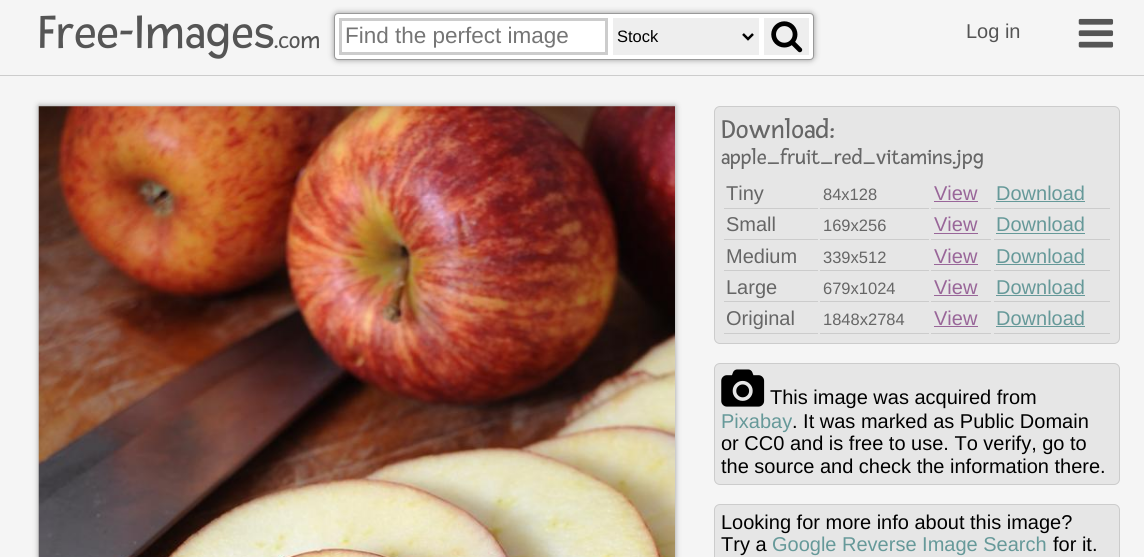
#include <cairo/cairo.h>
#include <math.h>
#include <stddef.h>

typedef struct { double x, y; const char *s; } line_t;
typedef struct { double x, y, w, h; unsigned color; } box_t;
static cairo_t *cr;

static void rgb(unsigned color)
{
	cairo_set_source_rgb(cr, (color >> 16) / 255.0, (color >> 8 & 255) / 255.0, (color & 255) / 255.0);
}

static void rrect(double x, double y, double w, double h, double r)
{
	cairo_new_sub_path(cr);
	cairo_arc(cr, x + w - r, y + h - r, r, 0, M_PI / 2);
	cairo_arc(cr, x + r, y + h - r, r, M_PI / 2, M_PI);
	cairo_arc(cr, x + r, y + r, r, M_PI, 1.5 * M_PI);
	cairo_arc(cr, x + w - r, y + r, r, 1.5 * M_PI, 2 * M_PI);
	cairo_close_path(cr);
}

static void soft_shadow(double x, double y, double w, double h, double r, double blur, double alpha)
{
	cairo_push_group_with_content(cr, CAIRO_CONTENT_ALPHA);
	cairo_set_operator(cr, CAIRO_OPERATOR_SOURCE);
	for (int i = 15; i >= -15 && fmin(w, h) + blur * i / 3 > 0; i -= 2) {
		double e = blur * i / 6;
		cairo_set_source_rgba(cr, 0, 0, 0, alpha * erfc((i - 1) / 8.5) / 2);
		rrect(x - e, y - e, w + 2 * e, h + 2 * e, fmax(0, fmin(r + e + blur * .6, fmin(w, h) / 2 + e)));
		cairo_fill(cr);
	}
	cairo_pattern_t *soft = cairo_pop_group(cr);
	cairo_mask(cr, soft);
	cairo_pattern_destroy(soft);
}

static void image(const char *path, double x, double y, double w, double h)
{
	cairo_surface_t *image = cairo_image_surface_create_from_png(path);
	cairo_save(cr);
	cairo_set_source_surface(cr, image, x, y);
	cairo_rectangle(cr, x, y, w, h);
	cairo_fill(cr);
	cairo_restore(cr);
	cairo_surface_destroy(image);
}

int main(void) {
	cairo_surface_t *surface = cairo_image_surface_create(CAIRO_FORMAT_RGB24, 1144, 557);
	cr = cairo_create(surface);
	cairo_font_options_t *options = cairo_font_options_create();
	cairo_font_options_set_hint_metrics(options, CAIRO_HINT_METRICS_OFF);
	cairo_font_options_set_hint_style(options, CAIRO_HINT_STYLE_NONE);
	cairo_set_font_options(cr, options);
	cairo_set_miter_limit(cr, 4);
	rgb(0xf5f5f5);
	cairo_paint(cr);
	rgb(0xcccccc);
	cairo_rectangle(cr, 0, 75, 1144, 1);
	cairo_fill(cr);
	rgb(0x999999);
	soft_shadow(334, 13, 480, 47, 4, 3, 1);
	rgb(0xffffff);
	rrect(334.5, 13.5, 479, 46, 3.5);
	cairo_fill_preserve(cr);
	rgb(0x999999);
	cairo_set_line_width(cr, 1);
	cairo_stroke(cr);
	cairo_rectangle(cr, 340.5, 19.5, 266, 34);
	rgb(0xcccccc);
	cairo_set_line_width(cr, 3);
	cairo_stroke(cr);
	rgb(0xeeeeee);
	cairo_rectangle(cr, 613, 18, 146, 37);
	cairo_fill(cr);
	cairo_new_path(cr);
	cairo_move_to(cr, 743, 34);
	cairo_line_to(cr, 748, 39);
	cairo_line_to(cr, 753, 34);
	rgb(0x000000);
	cairo_set_line_width(cr, 2.5);
	cairo_stroke(cr);
	rgb(0xeeeeee);
	cairo_rectangle(cr, 764, 18, 45, 37);
	cairo_fill(cr);
	image("img/1.png", 771, 21, 32, 32);
	image("img/2.png", 1078, 18, 36, 30);
	rgb(0x999999);
	soft_shadow(39, 106, 636, 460, 0, 3, 1);
	image("img/3.png", 38, 106, 637, 451);
	rgb(0xe6e6e6);
	rrect(714.5, 106.5, 405, 237, 5.5);
	cairo_fill_preserve(cr);
	rgb(0xcccccc);
	cairo_set_line_width(cr, 1);
	cairo_stroke(cr);
	{
		static const box_t items[] = {
			{724, 208, 94, 1, 0xcccccc},
			{820, 208, 109, 1, 0xcccccc},
			{931, 208, 60, 1, 0xcccccc},
			{934, 201, 44, 1, 0x996699},
			{994, 208, 116, 1, 0xcccccc},
			{996, 201, 89, 1, 0x669999},
			{724, 239, 94, 1, 0xcccccc},
			{820, 239, 109, 1, 0xcccccc},
			{931, 239, 60, 1, 0xcccccc},
			{934, 233, 44, 1, 0x996699},
			{994, 239, 116, 1, 0xcccccc},
			{996, 233, 89, 1, 0x669999},
			{724, 270, 94, 1, 0xcccccc},
			{820, 270, 109, 1, 0xcccccc},
			{931, 270, 60, 1, 0xcccccc},
			{934, 264, 44, 1, 0x996699},
			{994, 270, 116, 1, 0xcccccc},
			{996, 264, 89, 1, 0x669999},
			{724, 301, 94, 1, 0xcccccc},
			{820, 301, 109, 1, 0xcccccc},
			{931, 301, 60, 1, 0xcccccc},
			{934, 295, 44, 1, 0x996699},
			{994, 301, 116, 1, 0xcccccc},
			{996, 295, 89, 1, 0x669999},
			{724, 333, 94, 1, 0xcccccc},
			{820, 333, 109, 1, 0xcccccc},
			{931, 333, 60, 1, 0xcccccc},
			{934, 326, 44, 1, 0x996699},
			{994, 333, 116, 1, 0xcccccc},
			{996, 326, 89, 1, 0x669999},
		};
		for (size_t i = 0; i < sizeof items / sizeof *items; i++) {
			rgb(items[i].color);
			cairo_rectangle(cr, items[i].x, items[i].y, items[i].w, items[i].h);
			cairo_fill(cr);
		}
	}
	rgb(0xe6e6e6);
	rrect(714.5, 363.5, 405, 121, 5.5);
	cairo_fill_preserve(cr);
	rgb(0xcccccc);
	cairo_stroke(cr);
	image("img/4.png", 721, 369, 44, 38);
	rgb(0xe6e6e6);
	rrect(714.5, 504.5, 405, 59, 5.5);
	cairo_fill_preserve(cr);
	rgb(0xcccccc);
	cairo_stroke(cr);
	cairo_select_font_face(cr, "Fresca", CAIRO_FONT_SLANT_NORMAL, CAIRO_FONT_WEIGHT_NORMAL);
	cairo_set_font_size(cr, 50);
	rgb(0x555555);
	cairo_move_to(cr, 38, 48);
	cairo_show_text(cr, "Free-Images");
	cairo_set_font_size(cr, 25);
	cairo_move_to(cr, 274, 48);
	cairo_show_text(cr, ".com");
	cairo_select_font_face(cr, "Liberation Sans", CAIRO_FONT_SLANT_NORMAL, CAIRO_FONT_WEIGHT_NORMAL);
	cairo_set_font_size(cr, 22.5);
	rgb(0x757575);
	cairo_move_to(cr, 345, 43);
	cairo_show_text(cr, "Find the perfect image");
	cairo_set_font_size(cr, 16.5);
	rgb(0x000000);
	cairo_move_to(cr, 617, 42);
	cairo_show_text(cr, "Stock");
	cairo_set_font_size(cr, 20);
	rgb(0x555555);
	cairo_move_to(cr, 966, 38);
	cairo_show_text(cr, "Log in");
	cairo_select_font_face(cr, "Fresca", CAIRO_FONT_SLANT_NORMAL, CAIRO_FONT_WEIGHT_NORMAL);
	cairo_set_font_size(cr, 27.5);
	rgb(0x666666);
	cairo_move_to(cr, 721, 138);
	cairo_show_text(cr, "Download:");
	cairo_set_font_size(cr, 22);
	cairo_move_to(cr, 721, 164);
	cairo_show_text(cr, "apple_fruit_red_vitamins.jpg");
	cairo_select_font_face(cr, "Liberation Sans", CAIRO_FONT_SLANT_NORMAL, CAIRO_FONT_WEIGHT_NORMAL);
	cairo_set_font_size(cr, 20);
	cairo_move_to(cr, 726, 200);
	cairo_show_text(cr, "Tiny");
	cairo_set_font_size(cr, 16.5);
	cairo_move_to(cr, 823, 200);
	cairo_show_text(cr, "84x128");
	cairo_set_font_size(cr, 20);
	rgb(0x996699);
	cairo_move_to(cr, 934, 200);
	cairo_show_text(cr, "View");
	rgb(0x669999);
	cairo_move_to(cr, 996, 200);
	cairo_show_text(cr, "Download");
	rgb(0x666666);
	cairo_move_to(cr, 726, 231);
	cairo_show_text(cr, "Small");
	cairo_set_font_size(cr, 16.5);
	cairo_move_to(cr, 823, 231);
	cairo_show_text(cr, "169x256");
	cairo_set_font_size(cr, 20);
	rgb(0x996699);
	cairo_move_to(cr, 934, 231);
	cairo_show_text(cr, "View");
	rgb(0x669999);
	cairo_move_to(cr, 996, 231);
	cairo_show_text(cr, "Download");
	rgb(0x666666);
	cairo_move_to(cr, 726, 263);
	cairo_show_text(cr, "Medium");
	cairo_set_font_size(cr, 16.5);
	cairo_move_to(cr, 823, 263);
	cairo_show_text(cr, "339x512");
	cairo_set_font_size(cr, 20);
	rgb(0x996699);
	cairo_move_to(cr, 934, 263);
	cairo_show_text(cr, "View");
	rgb(0x669999);
	cairo_move_to(cr, 996, 263);
	cairo_show_text(cr, "Download");
	rgb(0x666666);
	cairo_move_to(cr, 726, 294);
	cairo_show_text(cr, "Large");
	cairo_set_font_size(cr, 16.5);
	cairo_move_to(cr, 823, 294);
	cairo_show_text(cr, "679x1024");
	cairo_set_font_size(cr, 20);
	rgb(0x996699);
	cairo_move_to(cr, 934, 294);
	cairo_show_text(cr, "View");
	rgb(0x669999);
	cairo_move_to(cr, 996, 294);
	cairo_show_text(cr, "Download");
	rgb(0x666666);
	cairo_move_to(cr, 726, 325);
	cairo_show_text(cr, "Original");
	cairo_set_font_size(cr, 16.5);
	cairo_move_to(cr, 823, 325);
	cairo_show_text(cr, "1848x2784");
	cairo_set_font_size(cr, 20);
	rgb(0x996699);
	cairo_move_to(cr, 934, 325);
	cairo_show_text(cr, "View");
	rgb(0x669999);
	cairo_move_to(cr, 996, 325);
	cairo_show_text(cr, "Download");
	rgb(0x000000);
	cairo_move_to(cr, 770, 404);
	cairo_show_text(cr, "This image was acquired from");
	rgb(0x669999);
	cairo_move_to(cr, 721, 428);
	cairo_show_text(cr, "Pixabay");
	rgb(0x000000);
	{
		static const line_t items[] = {
			{792, 428, ". It was marked as Public Domain"},
			{721, 450, "or CC0 and is free to use. To verify, go to"},
			{721, 473, "the source and check the information there."},
			{721, 529, "Looking for more info about this image?"},
			{721, 551, "Try a"},
		};
		for (size_t i = 0; i < sizeof items / sizeof *items; i++) {
			cairo_move_to(cr, items[i].x, items[i].y);
			cairo_show_text(cr, items[i].s);
		}
	}
	rgb(0x669999);
	cairo_move_to(cr, 772, 551);
	cairo_show_text(cr, "Google Reverse Image Search");
	rgb(0x000000);
	cairo_move_to(cr, 1053, 551);
	cairo_show_text(cr, "for it.");
	cairo_surface_write_to_png(surface, "page.png");
	cairo_font_options_destroy(options);
	cairo_destroy(cr);
	cairo_surface_destroy(surface);
	return 0;
}
